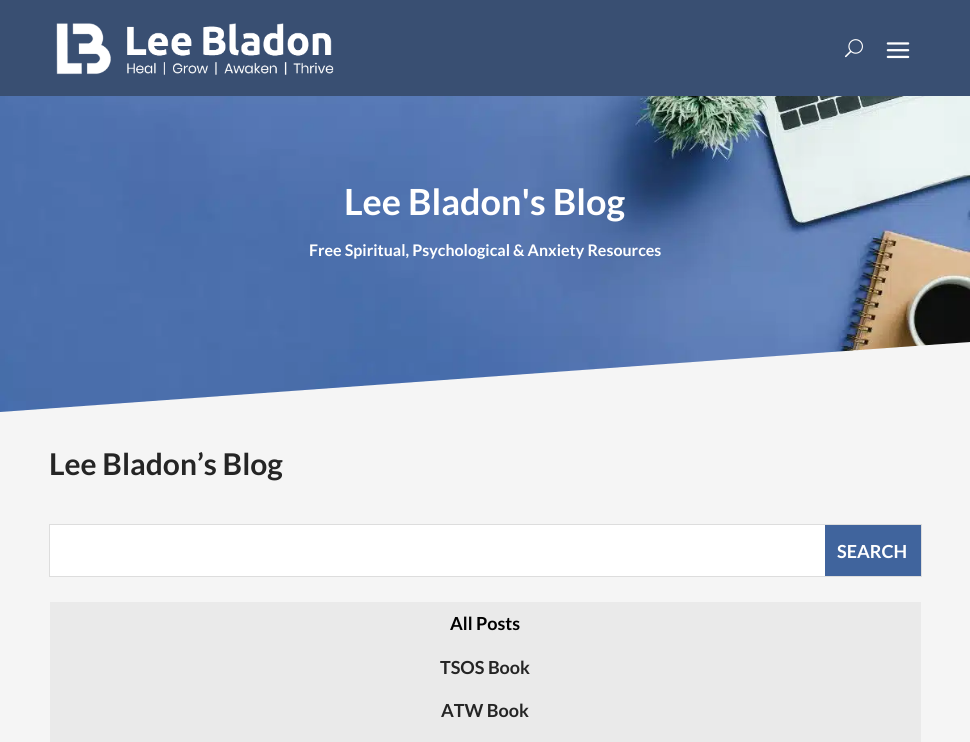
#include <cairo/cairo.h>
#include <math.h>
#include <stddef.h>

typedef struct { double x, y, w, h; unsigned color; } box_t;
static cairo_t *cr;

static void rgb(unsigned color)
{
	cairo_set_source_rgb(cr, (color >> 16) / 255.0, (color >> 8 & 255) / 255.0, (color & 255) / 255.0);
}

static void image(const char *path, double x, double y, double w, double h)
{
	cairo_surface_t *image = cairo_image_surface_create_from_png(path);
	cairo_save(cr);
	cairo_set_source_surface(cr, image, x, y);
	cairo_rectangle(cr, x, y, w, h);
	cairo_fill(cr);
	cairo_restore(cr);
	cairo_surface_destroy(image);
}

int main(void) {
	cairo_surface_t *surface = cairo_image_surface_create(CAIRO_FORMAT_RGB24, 970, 742);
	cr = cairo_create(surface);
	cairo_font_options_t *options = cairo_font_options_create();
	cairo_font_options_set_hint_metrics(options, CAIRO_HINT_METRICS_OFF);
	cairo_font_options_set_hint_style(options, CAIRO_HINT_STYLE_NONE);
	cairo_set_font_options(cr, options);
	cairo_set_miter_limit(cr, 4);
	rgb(0xffffff);
	cairo_paint(cr);
	rgb(0x394f72);
	cairo_rectangle(cr, 0, 0, 970, 96);
	cairo_fill(cr);
	image("img/1.png", 56, 23, 278, 52);
	image("img/2.png", 845, 39, 18, 19);
	image("img/3.png", 886, 42, 24, 17);
	image("img/4.png", 0, 96, 970, 316);
	rgb(0xf5f5f5);
	cairo_new_path(cr);
	cairo_move_to(cr, 970, 342);
	cairo_line_to(cr, 970, 412);
	cairo_line_to(cr, 0, 412);
	cairo_close_path(cr);
	cairo_fill(cr);
	cairo_rectangle(cr, 0, 412, 970, 330);
	cairo_fill(cr);
	cairo_rectangle(cr, 49.5, 524.5, 872, 52);
	rgb(0xdddddd);
	cairo_set_line_width(cr, 1);
	cairo_stroke(cr);
	{
		static const box_t items[] = {
			{50, 525, 775, 51, 0xffffff},
			{825, 525, 96, 51, 0x40649d},
			{50, 602, 871, 140, 0xeaeaea},
		};
		for (size_t i = 0; i < sizeof items / sizeof *items; i++) {
			rgb(items[i].color);
			cairo_rectangle(cr, items[i].x, items[i].y, items[i].w, items[i].h);
			cairo_fill(cr);
		}
	}
	cairo_select_font_face(cr, "Lato", CAIRO_FONT_SLANT_NORMAL, CAIRO_FONT_WEIGHT_BOLD);
	cairo_set_font_size(cr, 36);
	rgb(0xffffff);
	cairo_move_to(cr, 344, 215);
	cairo_show_text(cr, "Lee Bladon's Blog");
	cairo_set_font_size(cr, 16);
	cairo_move_to(cr, 309, 256);
	cairo_show_text(cr, "Free Spiritual, Psychological & Anxiety Resources");
	cairo_set_font_size(cr, 30);
	rgb(0x252525);
	cairo_move_to(cr, 49, 475);
	cairo_show_text(cr, "Lee Bladon’s Blog");
	cairo_set_font_size(cr, 18);
	rgb(0xffffff);
	cairo_move_to(cr, 837, 558);
	cairo_show_text(cr, "SEARCH");
	rgb(0x000000);
	cairo_move_to(cr, 450, 630);
	cairo_show_text(cr, "All Posts");
	rgb(0x252525);
	cairo_move_to(cr, 440, 674);
	cairo_show_text(cr, "TSOS Book");
	cairo_move_to(cr, 441, 717);
	cairo_show_text(cr, "ATW Book");
	cairo_surface_write_to_png(surface, "page.png");
	cairo_font_options_destroy(options);
	cairo_destroy(cr);
	cairo_surface_destroy(surface);
	return 0;
}
